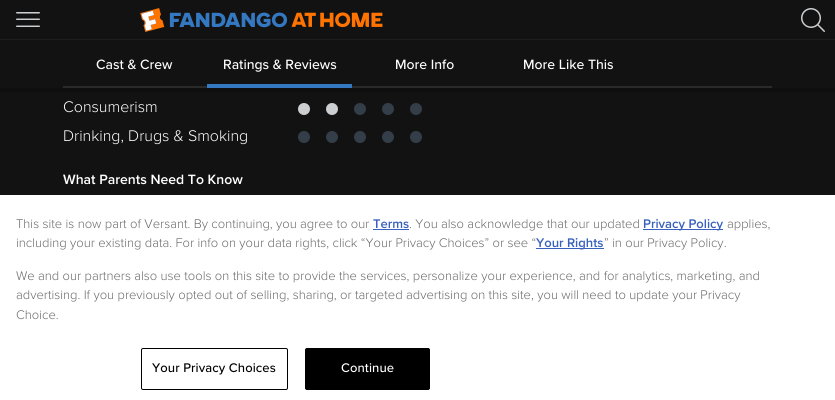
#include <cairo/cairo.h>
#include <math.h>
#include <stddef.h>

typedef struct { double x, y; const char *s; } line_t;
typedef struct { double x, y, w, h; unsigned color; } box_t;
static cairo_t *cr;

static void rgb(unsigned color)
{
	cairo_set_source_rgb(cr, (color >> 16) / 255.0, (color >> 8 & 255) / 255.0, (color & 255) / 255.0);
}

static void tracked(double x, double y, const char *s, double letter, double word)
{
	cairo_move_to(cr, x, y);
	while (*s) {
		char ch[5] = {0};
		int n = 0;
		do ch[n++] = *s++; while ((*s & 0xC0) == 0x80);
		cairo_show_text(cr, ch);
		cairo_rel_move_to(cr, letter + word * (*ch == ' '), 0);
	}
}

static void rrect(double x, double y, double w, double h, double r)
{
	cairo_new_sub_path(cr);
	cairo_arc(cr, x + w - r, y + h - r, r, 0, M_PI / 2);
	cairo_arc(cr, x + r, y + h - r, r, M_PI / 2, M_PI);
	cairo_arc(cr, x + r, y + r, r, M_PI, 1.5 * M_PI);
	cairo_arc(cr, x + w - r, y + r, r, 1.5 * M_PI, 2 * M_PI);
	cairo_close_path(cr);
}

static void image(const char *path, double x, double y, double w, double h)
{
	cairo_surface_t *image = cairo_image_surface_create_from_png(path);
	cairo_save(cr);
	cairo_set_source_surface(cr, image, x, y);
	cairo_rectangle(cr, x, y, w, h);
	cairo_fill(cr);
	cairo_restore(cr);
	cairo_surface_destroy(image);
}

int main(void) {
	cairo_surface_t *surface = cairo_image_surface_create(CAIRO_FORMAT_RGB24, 835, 400);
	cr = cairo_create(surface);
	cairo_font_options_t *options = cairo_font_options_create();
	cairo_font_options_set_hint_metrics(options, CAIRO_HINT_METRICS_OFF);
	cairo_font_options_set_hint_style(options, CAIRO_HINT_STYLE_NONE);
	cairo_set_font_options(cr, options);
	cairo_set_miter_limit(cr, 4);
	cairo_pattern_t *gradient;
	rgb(0x121212);
	cairo_paint(cr);
	rgb(0x1e1e1e);
	cairo_rectangle(cr, 0, 39, 835, 1);
	cairo_fill(cr);
	image("img/1.png", 16, 12, 24, 15);
	image("img/2.png", 140, 8, 243, 24);
	image("img/3.png", 801, 8, 24, 24);
	rgb(0x2a2a2a);
	cairo_rectangle(cr, 63, 86, 709, 2);
	cairo_fill(cr);
	rgb(0x3478c1);
	cairo_rectangle(cr, 207, 84, 145, 4);
	cairo_fill(cr);
	gradient = cairo_pattern_create_linear(418, 98, 418, 88);
	cairo_pattern_add_color_stop_rgba(gradient, 0, 0.071, 0.071, 0.071, 1);
	cairo_pattern_add_color_stop_rgba(gradient, 1, 0.055, 0.055, 0.055, 1);
	cairo_set_source(cr, gradient);
	cairo_pattern_destroy(gradient);
	cairo_rectangle(cr, 0, 88, 835, 4);
	cairo_fill(cr);
	rgb(0xcccfd1);
	cairo_arc(cr, 304, 109, 6, 0, 2 * M_PI);
	cairo_fill(cr);
	cairo_arc(cr, 332, 109, 6, 0, 2 * M_PI);
	cairo_fill(cr);
	rgb(0x333e48);
	cairo_arc(cr, 360, 109, 6, 0, 2 * M_PI);
	cairo_fill(cr);
	cairo_arc(cr, 388, 109, 6, 0, 2 * M_PI);
	cairo_fill(cr);
	cairo_arc(cr, 416, 109, 6, 0, 2 * M_PI);
	cairo_fill(cr);
	cairo_arc(cr, 304, 137, 6, 0, 2 * M_PI);
	cairo_fill(cr);
	cairo_arc(cr, 332, 137, 6, 0, 2 * M_PI);
	cairo_fill(cr);
	cairo_arc(cr, 360, 137, 6, 0, 2 * M_PI);
	cairo_fill(cr);
	cairo_arc(cr, 388, 137, 6, 0, 2 * M_PI);
	cairo_fill(cr);
	cairo_arc(cr, 416, 137, 6, 0, 2 * M_PI);
	cairo_fill(cr);
	{
		static const box_t items[] = {
			{0, 195, 835, 205, 0xffffff},
			{373, 229, 36, 1, 0x3860be},
			{643, 229, 80, 1, 0x3860be},
			{536, 248, 68, 1, 0x3860be},
		};
		for (size_t i = 0; i < sizeof items / sizeof *items; i++) {
			rgb(items[i].color);
			cairo_rectangle(cr, items[i].x, items[i].y, items[i].w, items[i].h);
			cairo_fill(cr);
		}
	}
	rrect(141.5, 348.5, 146, 41, 1.5);
	rgb(0x000000);
	cairo_set_line_width(cr, 1);
	cairo_stroke(cr);
	rrect(305.5, 348.5, 124, 41, 1.5);
	cairo_fill_preserve(cr);
	cairo_stroke(cr);
	cairo_select_font_face(cr, "Proxima Nova Medium", CAIRO_FONT_SLANT_NORMAL, CAIRO_FONT_WEIGHT_NORMAL);
	cairo_set_font_size(cr, 14);
	rgb(0xffffff);
	{
		static const line_t items[] = {
			{96, 69, "Cast & Crew"},
			{223, 69, "Ratings & Reviews"},
			{395, 69, "More Info"},
			{523, 69, "More Like This"},
		};
		for (size_t i = 0; i < sizeof items / sizeof *items; i++) {
			cairo_move_to(cr, items[i].x, items[i].y);
			cairo_show_text(cr, items[i].s);
		}
	}
	cairo_select_font_face(cr, "Proxima Nova Light", CAIRO_FONT_SLANT_NORMAL, CAIRO_FONT_WEIGHT_NORMAL);
	cairo_set_font_size(cr, 16);
	cairo_move_to(cr, 63, 112);
	cairo_show_text(cr, "Consumerism");
	cairo_move_to(cr, 63, 141);
	cairo_show_text(cr, "Drinking, Drugs & Smoking");
	cairo_select_font_face(cr, "Proxima Nova SemiBold", CAIRO_FONT_SLANT_NORMAL, CAIRO_FONT_WEIGHT_NORMAL);
	cairo_set_font_size(cr, 14);
	cairo_move_to(cr, 63, 184);
	cairo_show_text(cr, "What Parents Need To Know");
	cairo_select_font_face(cr, "Proxima Nova Light", CAIRO_FONT_SLANT_NORMAL, CAIRO_FONT_WEIGHT_NORMAL);
	cairo_set_font_size(cr, 13);
	rgb(0x696969);
	cairo_move_to(cr, 16, 228);
	cairo_show_text(cr, "This site is now part of Versant. By continuing, you agree to our");
	cairo_select_font_face(cr, "Proxima Nova SemiBold", CAIRO_FONT_SLANT_NORMAL, CAIRO_FONT_WEIGHT_NORMAL);
	rgb(0x3860be);
	cairo_move_to(cr, 373, 228);
	cairo_show_text(cr, "Terms");
	cairo_select_font_face(cr, "Proxima Nova Light", CAIRO_FONT_SLANT_NORMAL, CAIRO_FONT_WEIGHT_NORMAL);
	rgb(0x696969);
	cairo_move_to(cr, 409, 228);
	cairo_show_text(cr, ". You also acknowledge that our updated");
	cairo_select_font_face(cr, "Proxima Nova SemiBold", CAIRO_FONT_SLANT_NORMAL, CAIRO_FONT_WEIGHT_NORMAL);
	rgb(0x3860be);
	cairo_move_to(cr, 643, 228);
	cairo_show_text(cr, "Privacy Policy");
	cairo_select_font_face(cr, "Proxima Nova Light", CAIRO_FONT_SLANT_NORMAL, CAIRO_FONT_WEIGHT_NORMAL);
	rgb(0x696969);
	cairo_move_to(cr, 727, 228);
	cairo_show_text(cr, "applies,");
	cairo_move_to(cr, 16, 247);
	cairo_show_text(cr, "including your existing data. For info on your data rights, click “Your Privacy Choices” or see “");
	cairo_select_font_face(cr, "Proxima Nova SemiBold", CAIRO_FONT_SLANT_NORMAL, CAIRO_FONT_WEIGHT_NORMAL);
	rgb(0x3860be);
	cairo_move_to(cr, 536, 247);
	cairo_show_text(cr, "Your Rights");
	cairo_select_font_face(cr, "Proxima Nova Light", CAIRO_FONT_SLANT_NORMAL, CAIRO_FONT_WEIGHT_NORMAL);
	rgb(0x696969);
	{
		static const line_t items[] = {
			{604, 247, "” in our Privacy Policy."},
			{16, 280, "We and our partners also use tools on this site to provide the services, personalize your experience, and for analytics, marketing, and"},
			{16, 299, "advertising. If you previously opted out of selling, sharing, or targeted advertising on this site, you will need to update your Privacy"},
			{16, 319, "Choice."},
		};
		for (size_t i = 0; i < sizeof items / sizeof *items; i++) {
			cairo_move_to(cr, items[i].x, items[i].y);
			cairo_show_text(cr, items[i].s);
		}
	}
	cairo_select_font_face(cr, "Proxima Nova Medium", CAIRO_FONT_SLANT_NORMAL, CAIRO_FONT_WEIGHT_NORMAL);
	rgb(0x000000);
	tracked(152, 372, "Your Privacy Choices", 0.1, 0);
	rgb(0xffffff);
	tracked(341, 372, "Continue", 0.1, 0);
	cairo_surface_write_to_png(surface, "page.png");
	cairo_font_options_destroy(options);
	cairo_destroy(cr);
	cairo_surface_destroy(surface);
	return 0;
}
